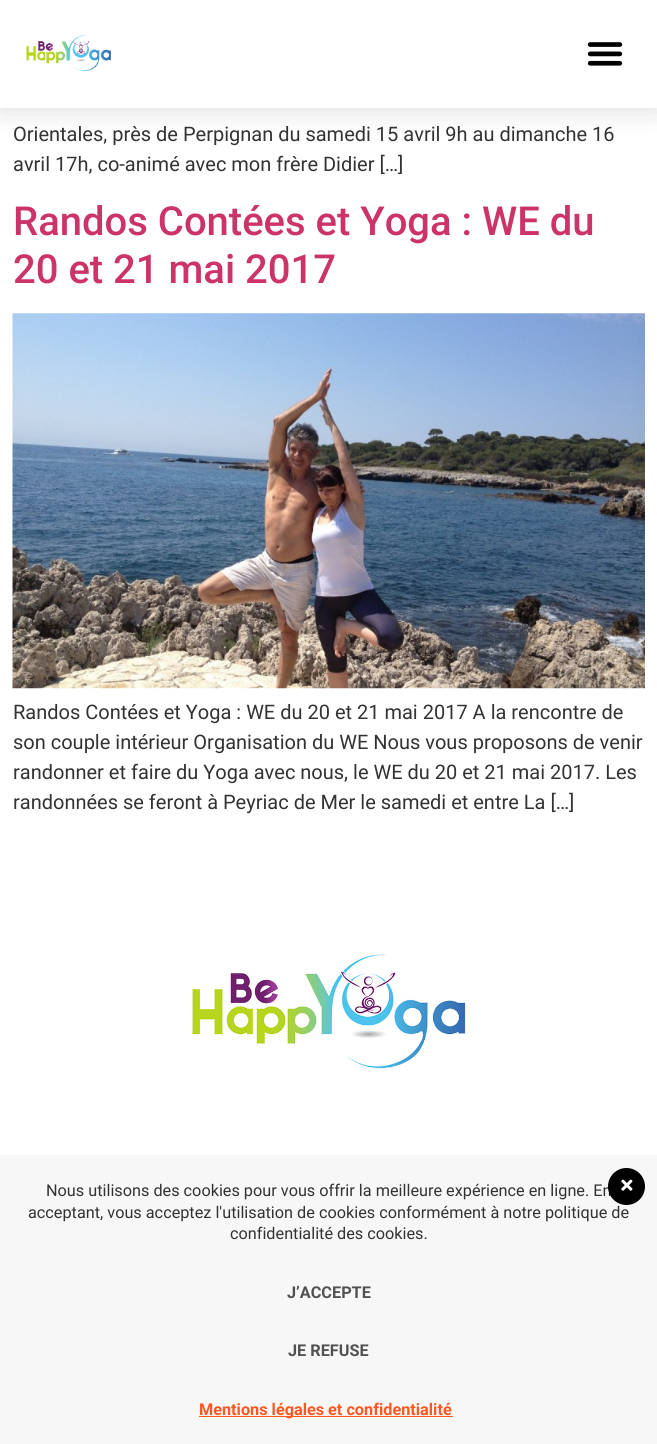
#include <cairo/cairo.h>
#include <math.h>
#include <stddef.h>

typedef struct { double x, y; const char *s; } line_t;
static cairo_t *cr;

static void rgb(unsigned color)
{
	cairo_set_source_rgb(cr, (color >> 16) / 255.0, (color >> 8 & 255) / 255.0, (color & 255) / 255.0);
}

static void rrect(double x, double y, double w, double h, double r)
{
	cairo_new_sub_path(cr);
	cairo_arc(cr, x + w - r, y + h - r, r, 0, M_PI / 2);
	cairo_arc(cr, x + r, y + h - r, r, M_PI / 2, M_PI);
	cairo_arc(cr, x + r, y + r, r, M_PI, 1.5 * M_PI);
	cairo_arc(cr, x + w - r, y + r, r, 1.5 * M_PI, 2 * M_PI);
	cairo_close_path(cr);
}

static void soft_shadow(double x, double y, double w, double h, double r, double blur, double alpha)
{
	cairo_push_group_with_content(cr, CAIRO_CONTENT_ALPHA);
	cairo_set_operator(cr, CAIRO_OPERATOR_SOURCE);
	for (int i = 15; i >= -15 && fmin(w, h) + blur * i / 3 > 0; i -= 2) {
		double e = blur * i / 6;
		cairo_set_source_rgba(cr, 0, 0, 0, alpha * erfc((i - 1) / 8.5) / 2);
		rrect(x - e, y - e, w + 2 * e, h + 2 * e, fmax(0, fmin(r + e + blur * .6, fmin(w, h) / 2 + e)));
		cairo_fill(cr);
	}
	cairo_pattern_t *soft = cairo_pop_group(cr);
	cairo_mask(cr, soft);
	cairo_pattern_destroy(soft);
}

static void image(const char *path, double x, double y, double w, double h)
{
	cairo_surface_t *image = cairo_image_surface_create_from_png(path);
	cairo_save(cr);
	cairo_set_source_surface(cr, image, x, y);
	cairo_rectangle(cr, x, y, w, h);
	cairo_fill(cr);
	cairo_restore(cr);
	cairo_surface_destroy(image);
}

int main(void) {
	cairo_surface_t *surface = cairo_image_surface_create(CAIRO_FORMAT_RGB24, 657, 1444);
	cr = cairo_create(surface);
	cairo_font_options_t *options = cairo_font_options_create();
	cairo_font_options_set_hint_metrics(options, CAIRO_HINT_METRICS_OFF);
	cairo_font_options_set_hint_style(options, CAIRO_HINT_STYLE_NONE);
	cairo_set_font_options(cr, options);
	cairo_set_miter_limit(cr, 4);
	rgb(0xffffff);
	cairo_paint(cr);
	rgb(0x000000);
	soft_shadow(0, 0, 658, 108, 0, 15, 0.15);
	rgb(0xffffff);
	cairo_rectangle(cr, 0, 0, 657, 108);
	cairo_fill(cr);
	image("img/1.png", 26, 35, 85, 37);
	image("img/2.png", 587, 42, 36, 24);
	image("img/3.png", 12, 313, 633, 376);
	image("img/4.png", 192, 954, 274, 115);
	rgb(0xf7f7f7);
	cairo_rectangle(cr, 0, 1155, 657, 289);
	cairo_fill(cr);
	rgb(0xff5722);
	cairo_rectangle(cr, 199, 1416, 254, 1);
	cairo_fill(cr);
	cairo_select_font_face(cr, "Roboto", CAIRO_FONT_SLANT_NORMAL, CAIRO_FONT_WEIGHT_NORMAL);
	cairo_set_font_size(cr, 20);
	rgb(0x333333);
	cairo_move_to(cr, 13, 141);
	cairo_show_text(cr, "Orientales, près de Perpignan du samedi 15 avril 9h au dimanche 16");
	cairo_move_to(cr, 13, 171);
	cairo_show_text(cr, "avril 17h, co-animé avec mon frère Didier […]");
	cairo_select_font_face(cr, "Roboto Medium", CAIRO_FONT_SLANT_NORMAL, CAIRO_FONT_WEIGHT_NORMAL);
	cairo_set_font_size(cr, 40);
	rgb(0xcc3366);
	cairo_move_to(cr, 13, 235);
	cairo_show_text(cr, "Randos Contées et Yoga : WE du");
	cairo_move_to(cr, 13, 283);
	cairo_show_text(cr, "20 et 21 mai 2017");
	cairo_select_font_face(cr, "Roboto", CAIRO_FONT_SLANT_NORMAL, CAIRO_FONT_WEIGHT_NORMAL);
	cairo_set_font_size(cr, 20);
	rgb(0x333333);
	{
		static const line_t items[] = {
			{13, 719, "Randos Contées et Yoga : WE du 20 et 21 mai 2017 A la rencontre de"},
			{13, 749, "son couple intérieur Organisation du WE Nous vous proposons de venir"},
			{13, 779, "randonner et faire du Yoga avec nous, le WE du 20 et 21 mai 2017. Les"},
			{13, 809, "randonnées se feront à Peyriac de Mer le samedi et entre La […]"},
		};
		for (size_t i = 0; i < sizeof items / sizeof *items; i++) {
			cairo_move_to(cr, items[i].x, items[i].y);
			cairo_show_text(cr, items[i].s);
		}
	}
	cairo_set_font_size(cr, 16.25);
	cairo_move_to(cr, 46, 1196);
	cairo_show_text(cr, "Nous utilisons des cookies pour vous offrir la meilleure expérience en ligne. En");
	rgb(0x000000);
	cairo_new_path(cr);
	cairo_arc(cr, 626.5, 1186.5, 18.5, 0, 2 * M_PI);
	cairo_fill(cr);
	image("img/5.png", 621, 1179, 12, 12);
	rgb(0x333333);
	cairo_move_to(cr, 28, 1218);
	cairo_show_text(cr, "acceptant, vous acceptez l'utilisation de cookies conformément à notre politique de");
	cairo_move_to(cr, 230, 1239);
	cairo_show_text(cr, "confidentialité des cookies.");
	cairo_select_font_face(cr, "Roboto", CAIRO_FONT_SLANT_NORMAL, CAIRO_FONT_WEIGHT_BOLD);
	rgb(0x515151);
	cairo_move_to(cr, 287, 1298);
	cairo_show_text(cr, "J’ACCEPTE");
	cairo_move_to(cr, 288, 1356);
	cairo_show_text(cr, "JE REFUSE");
	rgb(0xff5722);
	cairo_move_to(cr, 199, 1415);
	cairo_show_text(cr, "Mentions légales et confidentialité");
	cairo_surface_write_to_png(surface, "page.png");
	cairo_font_options_destroy(options);
	cairo_destroy(cr);
	cairo_surface_destroy(surface);
	return 0;
}
